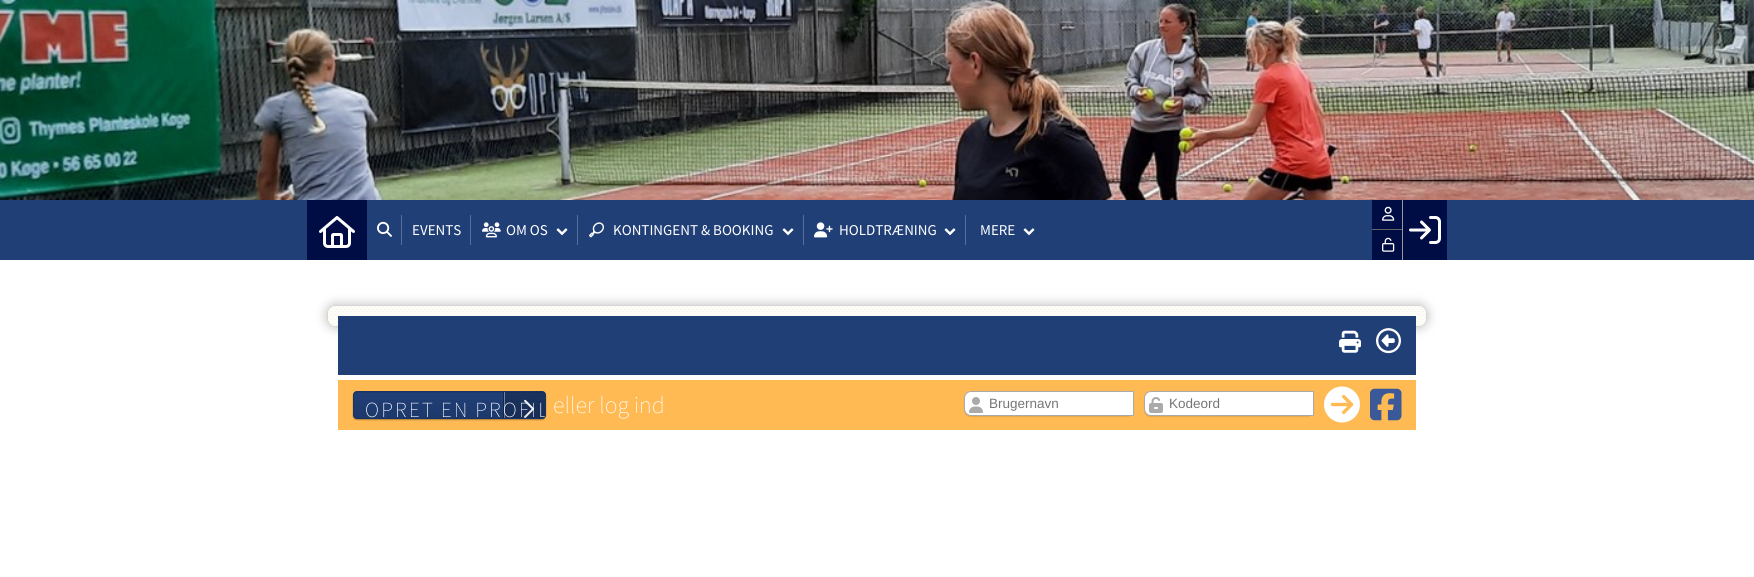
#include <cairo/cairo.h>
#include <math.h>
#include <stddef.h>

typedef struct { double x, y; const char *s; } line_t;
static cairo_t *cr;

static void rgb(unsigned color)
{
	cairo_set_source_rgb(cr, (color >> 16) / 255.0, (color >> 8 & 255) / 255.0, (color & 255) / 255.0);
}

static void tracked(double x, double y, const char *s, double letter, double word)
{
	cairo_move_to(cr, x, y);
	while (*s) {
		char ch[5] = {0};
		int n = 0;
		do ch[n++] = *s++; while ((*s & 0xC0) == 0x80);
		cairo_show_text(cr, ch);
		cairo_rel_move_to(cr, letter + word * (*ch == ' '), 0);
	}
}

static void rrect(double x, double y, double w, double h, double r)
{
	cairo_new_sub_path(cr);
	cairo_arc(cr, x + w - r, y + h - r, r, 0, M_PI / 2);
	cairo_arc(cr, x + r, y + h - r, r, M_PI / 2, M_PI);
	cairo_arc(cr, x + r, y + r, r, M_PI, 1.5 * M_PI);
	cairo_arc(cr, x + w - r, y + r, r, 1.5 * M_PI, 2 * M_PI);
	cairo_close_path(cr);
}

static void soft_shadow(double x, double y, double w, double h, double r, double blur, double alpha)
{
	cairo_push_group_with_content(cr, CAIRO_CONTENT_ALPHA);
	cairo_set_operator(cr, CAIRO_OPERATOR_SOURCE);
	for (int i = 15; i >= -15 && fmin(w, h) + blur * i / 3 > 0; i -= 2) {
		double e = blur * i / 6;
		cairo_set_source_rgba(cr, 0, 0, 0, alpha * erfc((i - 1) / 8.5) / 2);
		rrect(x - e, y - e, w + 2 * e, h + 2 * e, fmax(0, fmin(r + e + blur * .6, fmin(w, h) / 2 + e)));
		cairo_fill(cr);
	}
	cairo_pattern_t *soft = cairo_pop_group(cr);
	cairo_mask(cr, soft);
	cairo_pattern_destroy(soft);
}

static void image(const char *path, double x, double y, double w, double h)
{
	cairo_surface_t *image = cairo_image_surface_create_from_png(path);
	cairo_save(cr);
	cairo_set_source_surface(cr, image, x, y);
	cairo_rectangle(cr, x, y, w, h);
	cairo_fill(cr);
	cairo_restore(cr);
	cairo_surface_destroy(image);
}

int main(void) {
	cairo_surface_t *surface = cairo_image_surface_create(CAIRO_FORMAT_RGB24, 1754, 577);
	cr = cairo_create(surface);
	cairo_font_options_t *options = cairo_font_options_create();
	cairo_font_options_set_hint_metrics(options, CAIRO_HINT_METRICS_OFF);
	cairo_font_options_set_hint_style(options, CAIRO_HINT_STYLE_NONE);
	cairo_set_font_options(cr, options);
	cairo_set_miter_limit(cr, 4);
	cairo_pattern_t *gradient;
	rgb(0xffffff);
	cairo_paint(cr);
	image("img/1.png", 0, 0, 1754, 200);
	rgb(0x203f77);
	cairo_rectangle(cr, 0, 200, 1754, 60);
	cairo_fill(cr);
	rgb(0x000d45);
	cairo_rectangle(cr, 307, 200, 60, 60);
	cairo_fill(cr);
	image("img/2.png", 319, 216, 36, 32);
	image("img/3.png", 377, 221, 15, 16);
	rgb(0x586f99);
	cairo_rectangle(cr, 401, 215, 1, 30);
	cairo_fill(cr);
	cairo_rectangle(cr, 470, 215, 1, 30);
	cairo_fill(cr);
	image("img/4.png", 482, 222, 19, 16);
	image("img/5.png", 556, 228, 12, 8);
	cairo_rectangle(cr, 577, 215, 1, 30);
	cairo_fill(cr);
	image("img/6.png", 589, 222, 15, 16);
	image("img/5.png", 782, 228, 12, 8);
	cairo_rectangle(cr, 803, 215, 1, 30);
	cairo_fill(cr);
	image("img/7.png", 814, 222, 19, 16);
	image("img/5.png", 944, 228, 12, 8);
	cairo_rectangle(cr, 965, 215, 1, 30);
	cairo_fill(cr);
	image("img/5.png", 1023, 228, 12, 8);
	rgb(0x000d45);
	cairo_rectangle(cr, 1372, 200, 30, 29);
	cairo_fill(cr);
	rgb(0x666666);
	cairo_rectangle(cr, 1372, 229, 33, 1);
	cairo_fill(cr);
	image("img/8.png", 1382, 206, 13, 15);
	rgb(0x000d45);
	cairo_rectangle(cr, 1372, 230, 30, 30);
	cairo_fill(cr);
	image("img/9.png", 1382, 237, 13, 15);
	cairo_rectangle(cr, 1403, 200, 44, 60);
	cairo_fill(cr);
	rgb(0x999999);
	cairo_rectangle(cr, 1402, 200, 1, 60);
	cairo_fill(cr);
	image("img/10.png", 1409, 216, 32, 28);
	rgb(0x000000);
	soft_shadow(325, 303, 1104, 26, 10, 5, 0.2);
	image("img/11.png", 327, 305, 1100, 22);
	rrect(327.5, 305.5, 1099, 21, 7.5);
	rgb(0xd6d6d6);
	cairo_set_line_width(cr, 1);
	cairo_stroke(cr);
	rgb(0x203f77);
	cairo_rectangle(cr, 338, 316, 1078, 59);
	cairo_fill(cr);
	image("img/12.png", 1339, 330, 22, 23);
	image("img/13.png", 1376, 328, 25, 26);
	rgb(0xffba53);
	cairo_rectangle(cr, 338, 380, 1078, 50);
	cairo_fill(cr);
	rgb(0x000000);
	soft_shadow(353, 392, 193, 28, 4, 0.5, 0.3);
	rgb(0x203f77);
	rrect(353, 391, 193, 28, 4);
	cairo_fill(cr);
	rgb(0x1d396b);
	cairo_new_path(cr);
	cairo_move_to(cr, 357, 393);
	cairo_line_to(cr, 542, 393);
	cairo_curve_to(cr, 543, 393, 545, 395, 545, 396);
	cairo_curve_to(cr, 545, 394, 545, 392, 542, 392);
	cairo_line_to(cr, 356, 392);
	cairo_curve_to(cr, 354, 392, 354, 394, 354, 396);
	cairo_curve_to(cr, 354, 395, 356, 393, 357, 393);
	cairo_close_path(cr);
	cairo_fill(cr);
	rrect(353.5, 391.5, 192, 27, 3.5);
	cairo_set_source_rgba(cr, 0, 0, 0, 0.2);
	cairo_stroke(cr);
	cairo_new_path(cr);
	cairo_move_to(cr, 503, 392);
	cairo_line_to(cr, 542.5, 392);
	cairo_curve_to(cr, 544, 392, 545, 393, 545, 394.5);
	cairo_line_to(cr, 545, 415.5);
	cairo_curve_to(cr, 545, 417, 544, 418, 542.5, 418);
	cairo_line_to(cr, 503, 418);
	cairo_close_path(cr);
	cairo_fill(cr);
	cairo_set_source_rgba(cr, 1, 1, 1, 0.4);
	cairo_rectangle(cr, 504, 392, 1, 26);
	cairo_fill(cr);
	cairo_set_source_rgba(cr, 0, 0, 0, 0.2);
	cairo_rectangle(cr, 503, 392, 1, 26);
	cairo_fill(cr);
	image("img/14.png", 524, 399, 11, 19);
	gradient = cairo_pattern_create_linear(450, 392, 450, 418);
	cairo_pattern_add_color_stop_rgba(gradient, 0, 0, 0, 0, 0);
	cairo_pattern_add_color_stop_rgba(gradient, 1, 0, 0, 0, 0.1);
	cairo_set_source(cr, gradient);
	cairo_pattern_destroy(gradient);
	rrect(354, 392, 191, 26, 2.5);
	cairo_fill(cr);
	rgb(0x000000);
	soft_shadow(964, 392, 170, 25, 7, 0.5, 0.1);
	rgb(0xffffff);
	cairo_new_path(cr);
	cairo_move_to(cr, 971, 391.5);
	cairo_line_to(cr, 1133.5, 391.5);
	cairo_line_to(cr, 1133.5, 415.5);
	cairo_line_to(cr, 971, 415.5);
	cairo_curve_to(cr, 967.5, 415.5, 964.5, 412.5, 964.5, 409);
	cairo_line_to(cr, 964.5, 398);
	cairo_curve_to(cr, 964.5, 394.5, 967.5, 391.5, 971, 391.5);
	cairo_close_path(cr);
	cairo_fill_preserve(cr);
	rgb(0xaaaaaa);
	cairo_stroke(cr);
	image("img/15.png", 969, 397, 14, 16);
	rgb(0x000000);
	soft_shadow(1144, 392, 170, 25, 7, 0.5, 0.1);
	rgb(0xffffff);
	cairo_new_path(cr);
	cairo_move_to(cr, 1151, 391.5);
	cairo_line_to(cr, 1313.5, 391.5);
	cairo_line_to(cr, 1313.5, 415.5);
	cairo_line_to(cr, 1151, 415.5);
	cairo_curve_to(cr, 1147.5, 415.5, 1144.5, 412.5, 1144.5, 409);
	cairo_line_to(cr, 1144.5, 398);
	cairo_curve_to(cr, 1144.5, 394.5, 1147.5, 391.5, 1151, 391.5);
	cairo_close_path(cr);
	cairo_fill_preserve(cr);
	rgb(0xaaaaaa);
	cairo_stroke(cr);
	image("img/16.png", 1149, 397, 14, 16);
	image("img/17.png", 1324, 386, 36, 37);
	image("img/18.png", 1370, 388, 32, 33);
	cairo_select_font_face(cr, "Source Sans Pro", CAIRO_FONT_SLANT_NORMAL, CAIRO_FONT_WEIGHT_NORMAL);
	cairo_set_font_size(cr, 15);
	rgb(0xffffff);
	{
		static const line_t items[] = {
			{412, 235, "EVENTS"},
			{506, 235, "OM OS"},
			{613, 235, "KONTINGENT & BOOKING"},
			{839, 235, "HOLDTRÆNING"},
			{980, 235, "MERE"},
		};
		for (size_t i = 0; i < sizeof items / sizeof *items; i++) {
			cairo_move_to(cr, items[i].x, items[i].y);
			cairo_show_text(cr, items[i].s);
		}
	}
	cairo_save(cr);
	rrect(354, 392, 191, 26, 2.5);
	cairo_clip(cr);
	cairo_select_font_face(cr, "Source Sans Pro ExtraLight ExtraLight", CAIRO_FONT_SLANT_NORMAL, CAIRO_FONT_WEIGHT_NORMAL);
	cairo_set_font_size(cr, 21.5);
	tracked(365, 417, "OPRET EN PROFIL", 2.2, -1);
	cairo_restore(cr);
	cairo_select_font_face(cr, "Source Sans Pro ExtraLight ExtraLight", CAIRO_FONT_SLANT_NORMAL, CAIRO_FONT_WEIGHT_NORMAL);
	cairo_set_font_size(cr, 24);
	cairo_move_to(cr, 553, 413);
	cairo_show_text(cr, "eller log ind");
	cairo_select_font_face(cr, "Liberation Sans", CAIRO_FONT_SLANT_NORMAL, CAIRO_FONT_WEIGHT_NORMAL);
	cairo_set_font_size(cr, 13.5);
	rgb(0x757575);
	cairo_move_to(cr, 989, 408);
	cairo_show_text(cr, "Brugernavn");
	cairo_move_to(cr, 1169, 408);
	cairo_show_text(cr, "Kodeord");
	cairo_surface_write_to_png(surface, "page.png");
	cairo_font_options_destroy(options);
	cairo_destroy(cr);
	cairo_surface_destroy(surface);
	return 0;
}
